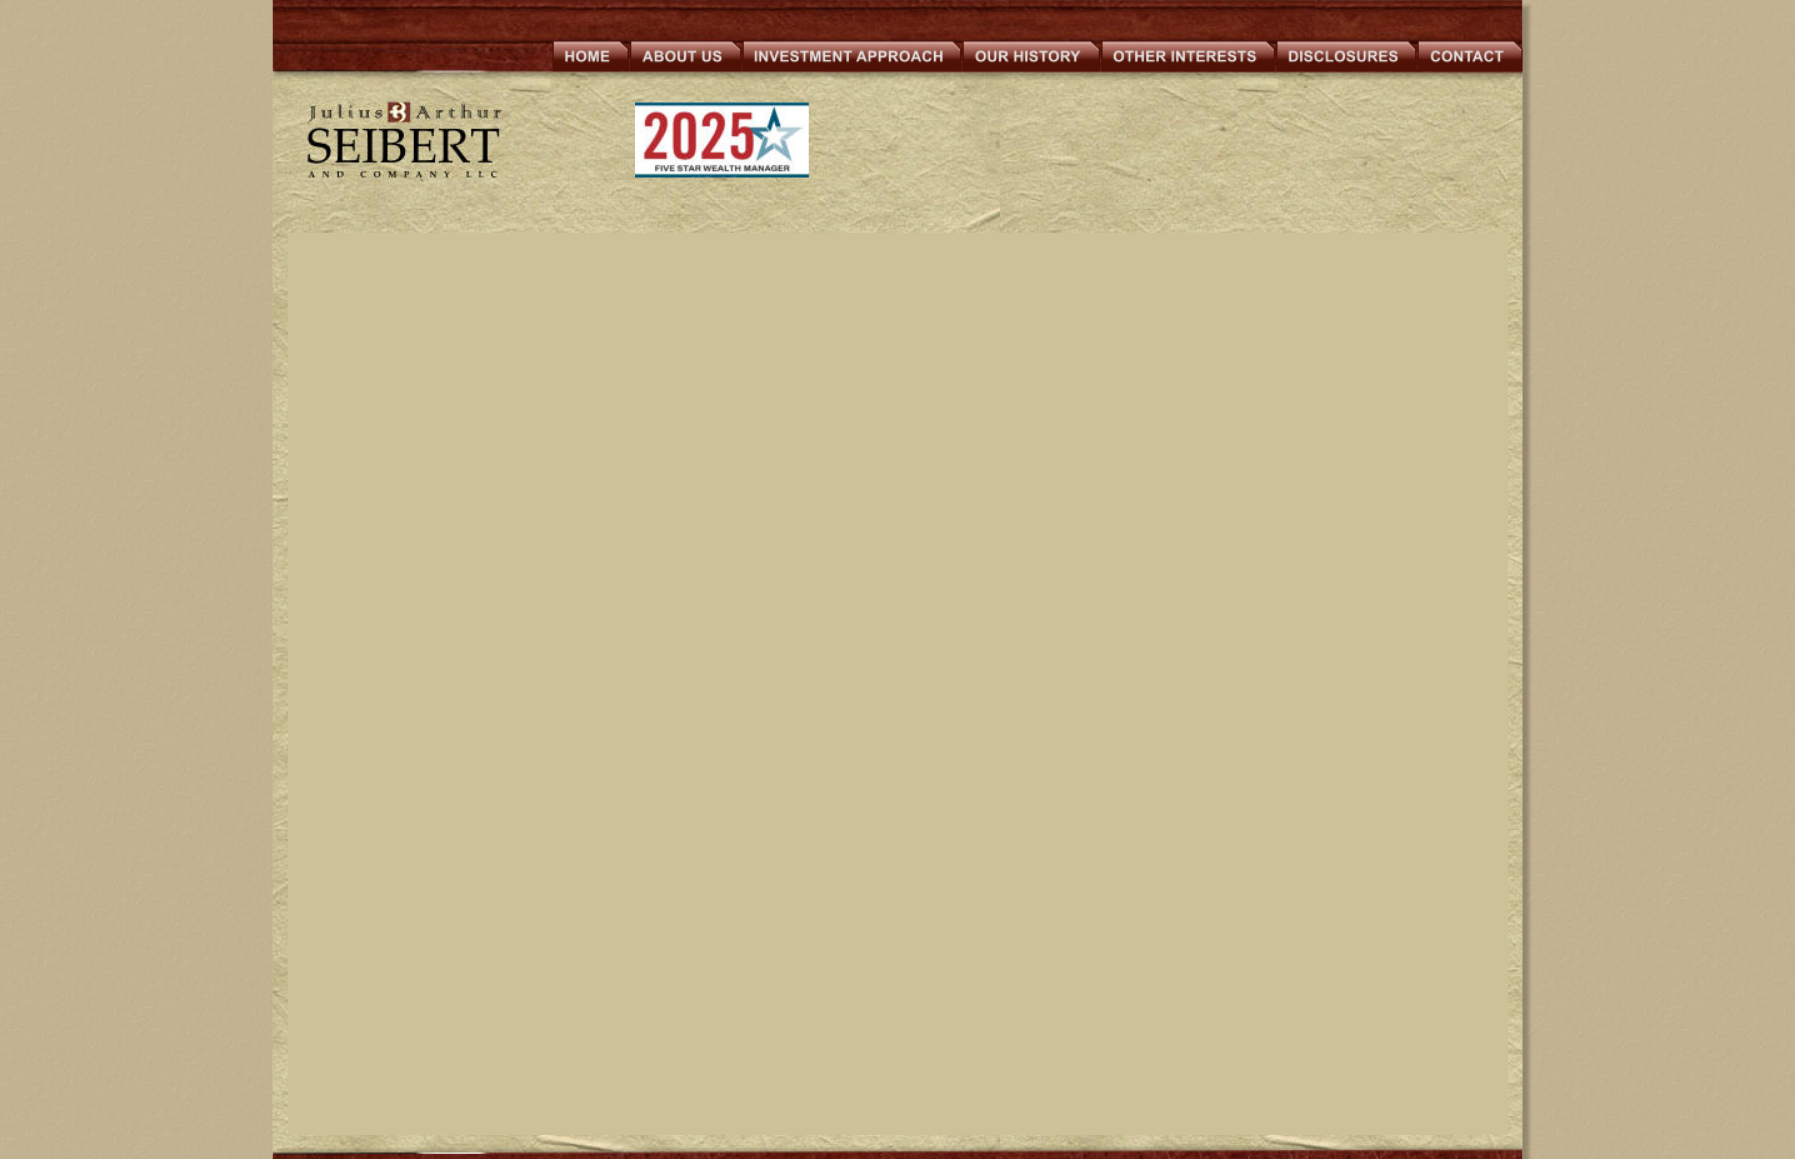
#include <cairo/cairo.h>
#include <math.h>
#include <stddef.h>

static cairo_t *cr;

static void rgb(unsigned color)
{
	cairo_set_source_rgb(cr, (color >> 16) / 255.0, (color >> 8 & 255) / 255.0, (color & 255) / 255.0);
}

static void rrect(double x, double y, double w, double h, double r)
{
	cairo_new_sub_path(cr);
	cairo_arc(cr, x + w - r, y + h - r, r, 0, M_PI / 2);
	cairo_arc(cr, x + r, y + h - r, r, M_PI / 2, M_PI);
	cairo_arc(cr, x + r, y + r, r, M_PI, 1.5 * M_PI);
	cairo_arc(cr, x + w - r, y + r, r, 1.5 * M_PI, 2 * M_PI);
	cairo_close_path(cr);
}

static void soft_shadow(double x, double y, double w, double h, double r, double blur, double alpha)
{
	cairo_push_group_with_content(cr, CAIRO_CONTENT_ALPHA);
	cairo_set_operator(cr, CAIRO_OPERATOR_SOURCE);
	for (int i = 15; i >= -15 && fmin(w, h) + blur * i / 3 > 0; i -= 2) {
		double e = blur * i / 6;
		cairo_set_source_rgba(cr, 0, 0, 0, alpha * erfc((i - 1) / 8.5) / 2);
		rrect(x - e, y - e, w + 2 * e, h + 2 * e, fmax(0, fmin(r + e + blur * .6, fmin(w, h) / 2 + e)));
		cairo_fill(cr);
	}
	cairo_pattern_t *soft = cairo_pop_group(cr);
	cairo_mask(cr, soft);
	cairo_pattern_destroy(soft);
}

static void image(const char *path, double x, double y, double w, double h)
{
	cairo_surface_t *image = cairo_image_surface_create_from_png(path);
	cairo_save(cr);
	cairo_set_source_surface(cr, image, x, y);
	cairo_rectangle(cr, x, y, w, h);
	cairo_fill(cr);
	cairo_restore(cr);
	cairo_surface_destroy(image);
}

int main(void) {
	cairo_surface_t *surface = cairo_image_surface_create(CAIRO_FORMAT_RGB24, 1795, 1159);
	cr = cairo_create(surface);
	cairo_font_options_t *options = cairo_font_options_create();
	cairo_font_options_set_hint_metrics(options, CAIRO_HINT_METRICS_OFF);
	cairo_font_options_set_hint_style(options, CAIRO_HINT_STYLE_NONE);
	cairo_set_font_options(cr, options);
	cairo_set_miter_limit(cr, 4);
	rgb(0xffffff);
	cairo_paint(cr);
	image("img/1.png", 0, 0, 1795, 1159);
	rgb(0x000000);
	soft_shadow(279, 6, 1250, 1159, 0, 2, 0.25);
	image("img/2.png", 272, 0, 1251, 1159);
	image("img/3.png", 272, 0, 1251, 88);
	image("img/4.png", 307, 101, 196, 77);
	image("img/5.png", 635, 102, 174, 76);
	rgb(0xcdc197);
	cairo_rectangle(cr, 288, 233, 1220, 902);
	cairo_fill(cr);
	image("img/6.png", 272, 1137, 1251, 22);
	image("img/7.png", 552, 40, 77, 32);
	image("img/8.png", 630, 40, 112, 32);
	image("img/9.png", 742, 40, 220, 32);
	image("img/10.png", 962, 40, 138, 32);
	image("img/11.png", 1101, 40, 174, 32);
	image("img/12.png", 1276, 40, 141, 32);
	image("img/13.png", 1417, 40, 106, 32);
	cairo_surface_write_to_png(surface, "page.png");
	cairo_font_options_destroy(options);
	cairo_destroy(cr);
	cairo_surface_destroy(surface);
	return 0;
}
